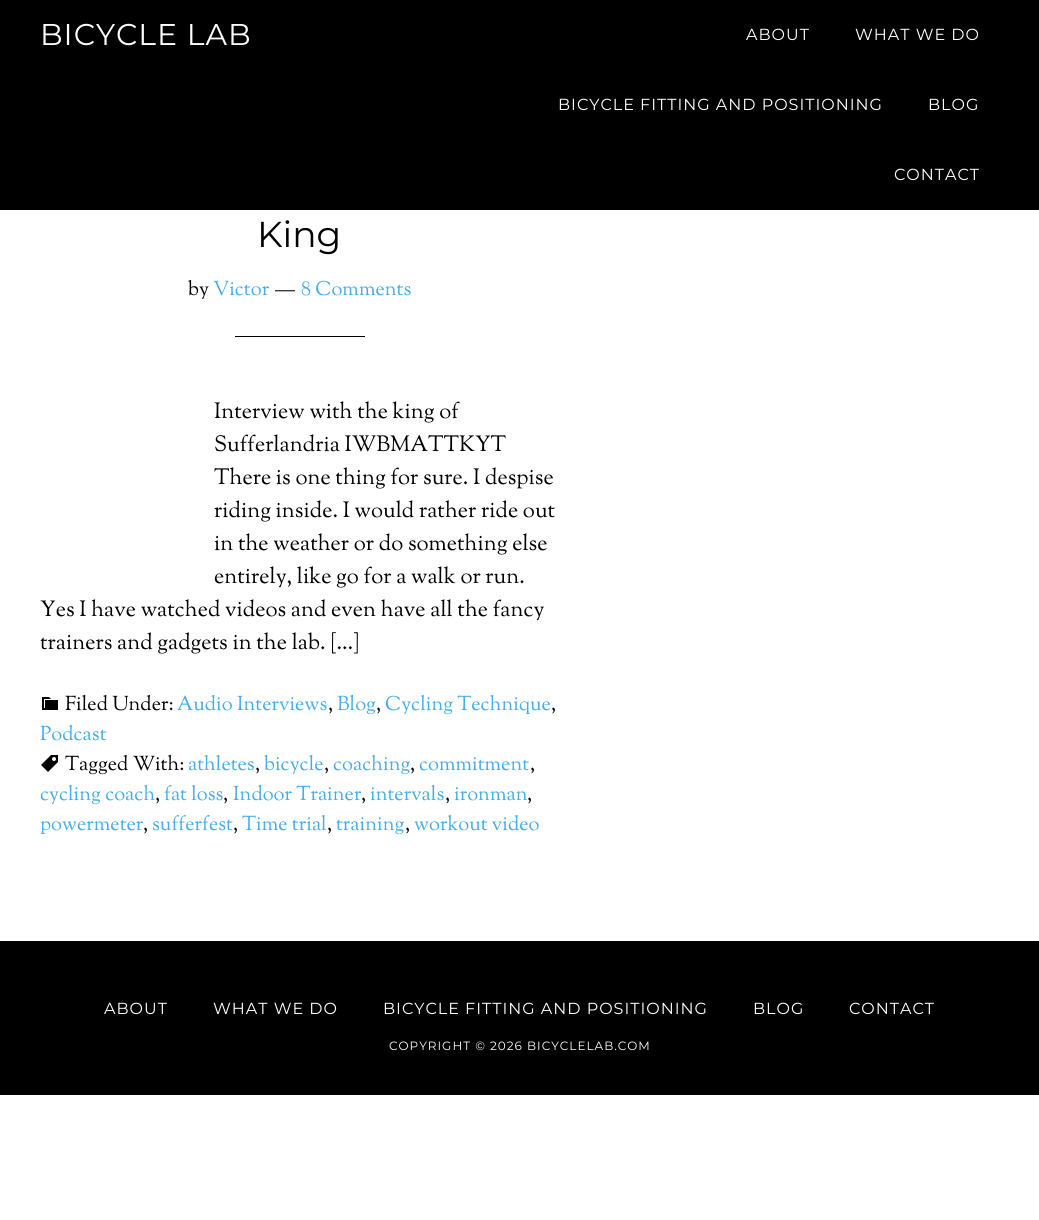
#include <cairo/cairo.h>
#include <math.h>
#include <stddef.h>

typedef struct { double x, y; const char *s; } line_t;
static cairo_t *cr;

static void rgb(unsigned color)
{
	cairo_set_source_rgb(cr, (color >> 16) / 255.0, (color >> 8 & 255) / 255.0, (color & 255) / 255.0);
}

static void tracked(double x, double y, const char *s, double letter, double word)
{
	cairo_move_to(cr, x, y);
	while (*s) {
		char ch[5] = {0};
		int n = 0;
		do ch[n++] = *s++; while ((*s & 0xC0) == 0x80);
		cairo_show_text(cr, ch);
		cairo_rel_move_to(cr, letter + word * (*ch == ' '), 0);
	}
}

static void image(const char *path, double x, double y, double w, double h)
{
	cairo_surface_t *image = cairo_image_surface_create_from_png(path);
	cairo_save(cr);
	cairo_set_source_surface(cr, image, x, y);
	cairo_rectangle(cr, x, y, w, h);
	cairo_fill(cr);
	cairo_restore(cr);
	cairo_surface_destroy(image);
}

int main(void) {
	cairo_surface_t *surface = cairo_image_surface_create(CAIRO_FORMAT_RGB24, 1039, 1220);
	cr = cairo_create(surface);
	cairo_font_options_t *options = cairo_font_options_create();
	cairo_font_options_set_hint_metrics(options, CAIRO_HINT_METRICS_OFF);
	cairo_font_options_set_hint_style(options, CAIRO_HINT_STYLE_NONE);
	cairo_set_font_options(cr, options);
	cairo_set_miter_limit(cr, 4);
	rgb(0xffffff);
	cairo_paint(cr);
	rgb(0x000000);
	cairo_rectangle(cr, 0, 0, 1039, 210);
	cairo_fill(cr);
	cairo_rectangle(cr, 235, 336, 130, 1);
	cairo_fill(cr);
	image("img/1.png", 42, 697, 16, 13);
	image("img/2.png", 41, 755, 17, 17);
	cairo_rectangle(cr, 0, 941, 1039, 154);
	cairo_fill(cr);
	cairo_select_font_face(cr, "Montserrat Thin", CAIRO_FONT_SLANT_NORMAL, CAIRO_FONT_WEIGHT_NORMAL);
	cairo_set_font_size(cr, 30);
	rgb(0xffffff);
	tracked(40, 45, "BICYCLE LAB", 1, 0);
	cairo_set_font_size(cr, 16);
	{
		static const line_t items[] = {
			{746, 40, "ABOUT"},
			{855, 40, "WHAT WE DO"},
			{558, 110, "BICYCLE FITTING AND POSITIONING"},
			{928, 110, "BLOG"},
			{894, 180, "CONTACT"},
		};
		for (size_t i = 0; i < sizeof items / sizeof *items; i++) {
			tracked(items[i].x, items[i].y, items[i].s, 1, 0);
		}
	}
	cairo_set_font_size(cr, 36);
	rgb(0x000000);
	cairo_move_to(cr, 257, 247);
	cairo_show_text(cr, "King");
	cairo_select_font_face(cr, "Sorts Mill Goudy", CAIRO_FONT_SLANT_NORMAL, CAIRO_FONT_WEIGHT_NORMAL);
	cairo_set_font_size(cr, 20);
	cairo_move_to(cr, 188, 295);
	cairo_show_text(cr, "by");
	rgb(0x44ace8);
	cairo_move_to(cr, 213, 295);
	cairo_show_text(cr, "Victor");
	rgb(0x000000);
	cairo_move_to(cr, 275, 295);
	cairo_show_text(cr, "—");
	rgb(0x44ace8);
	cairo_move_to(cr, 301, 295);
	cairo_show_text(cr, "8 Comments");
	cairo_set_font_size(cr, 22);
	rgb(0x000000);
	{
		static const line_t items[] = {
			{214, 418, "Interview with the king of"},
			{214, 451, "Sufferlandria IWBMATTKYT"},
			{214, 484, "There is one thing for sure. I despise"},
			{214, 517, "riding inside. I would rather ride out"},
			{214, 550, "in the weather or do something else"},
			{214, 583, "entirely, like go for a walk or run."},
			{40, 616, "Yes I have watched videos and even have all the fancy"},
			{40, 649, "trainers and gadgets in the lab. […]"},
		};
		for (size_t i = 0; i < sizeof items / sizeof *items; i++) {
			cairo_move_to(cr, items[i].x, items[i].y);
			cairo_show_text(cr, items[i].s);
		}
	}
	cairo_set_font_size(cr, 20);
	cairo_move_to(cr, 65, 710);
	cairo_show_text(cr, "Filed Under:");
	rgb(0x44ace8);
	cairo_move_to(cr, 177, 710);
	cairo_show_text(cr, "Audio Interviews");
	rgb(0x000000);
	cairo_move_to(cr, 328, 710);
	cairo_show_text(cr, ",");
	rgb(0x44ace8);
	cairo_move_to(cr, 337, 710);
	cairo_show_text(cr, "Blog");
	rgb(0x000000);
	cairo_move_to(cr, 376, 710);
	cairo_show_text(cr, ",");
	rgb(0x44ace8);
	cairo_move_to(cr, 385, 710);
	cairo_show_text(cr, "Cycling Technique");
	rgb(0x000000);
	cairo_move_to(cr, 551, 710);
	cairo_show_text(cr, ",");
	rgb(0x44ace8);
	cairo_move_to(cr, 40, 740);
	cairo_show_text(cr, "Podcast");
	rgb(0x000000);
	cairo_move_to(cr, 65, 770);
	cairo_show_text(cr, "Tagged With:");
	rgb(0x44ace8);
	cairo_move_to(cr, 188, 770);
	cairo_show_text(cr, "athletes");
	rgb(0x000000);
	cairo_move_to(cr, 255, 770);
	cairo_show_text(cr, ",");
	rgb(0x44ace8);
	cairo_move_to(cr, 264, 770);
	cairo_show_text(cr, "bicycle");
	rgb(0x000000);
	cairo_move_to(cr, 324, 770);
	cairo_show_text(cr, ",");
	rgb(0x44ace8);
	cairo_move_to(cr, 333, 770);
	cairo_show_text(cr, "coaching");
	rgb(0x000000);
	cairo_move_to(cr, 410, 770);
	cairo_show_text(cr, ",");
	rgb(0x44ace8);
	cairo_move_to(cr, 419, 770);
	cairo_show_text(cr, "commitment");
	rgb(0x000000);
	cairo_move_to(cr, 530, 770);
	cairo_show_text(cr, ",");
	rgb(0x44ace8);
	cairo_move_to(cr, 40, 800);
	cairo_show_text(cr, "cycling coach");
	rgb(0x000000);
	cairo_move_to(cr, 155, 800);
	cairo_show_text(cr, ",");
	rgb(0x44ace8);
	cairo_move_to(cr, 164, 800);
	cairo_show_text(cr, "fat loss");
	rgb(0x000000);
	cairo_move_to(cr, 223, 800);
	cairo_show_text(cr, ",");
	rgb(0x44ace8);
	cairo_move_to(cr, 233, 800);
	cairo_show_text(cr, "Indoor Trainer");
	rgb(0x000000);
	cairo_move_to(cr, 361, 800);
	cairo_show_text(cr, ",");
	rgb(0x44ace8);
	cairo_move_to(cr, 370, 800);
	cairo_show_text(cr, "intervals");
	rgb(0x000000);
	cairo_move_to(cr, 445, 800);
	cairo_show_text(cr, ",");
	rgb(0x44ace8);
	cairo_move_to(cr, 454, 800);
	cairo_show_text(cr, "ironman");
	rgb(0x000000);
	cairo_move_to(cr, 527, 800);
	cairo_show_text(cr, ",");
	rgb(0x44ace8);
	cairo_move_to(cr, 40, 830);
	cairo_show_text(cr, "powermeter");
	rgb(0x000000);
	cairo_move_to(cr, 143, 830);
	cairo_show_text(cr, ",");
	rgb(0x44ace8);
	cairo_move_to(cr, 152, 830);
	cairo_show_text(cr, "sufferfest");
	rgb(0x000000);
	cairo_move_to(cr, 233, 830);
	cairo_show_text(cr, ",");
	rgb(0x44ace8);
	cairo_move_to(cr, 242, 830);
	cairo_show_text(cr, "Time trial");
	rgb(0x000000);
	cairo_move_to(cr, 327, 830);
	cairo_show_text(cr, ",");
	rgb(0x44ace8);
	cairo_move_to(cr, 336, 830);
	cairo_show_text(cr, "training");
	rgb(0x000000);
	cairo_move_to(cr, 405, 830);
	cairo_show_text(cr, ",");
	rgb(0x44ace8);
	cairo_move_to(cr, 414, 830);
	cairo_show_text(cr, "workout video");
	cairo_select_font_face(cr, "Montserrat Thin", CAIRO_FONT_SLANT_NORMAL, CAIRO_FONT_WEIGHT_NORMAL);
	cairo_set_font_size(cr, 16);
	rgb(0xffffff);
	{
		static const line_t items[] = {
			{104, 1014, "ABOUT"},
			{213, 1014, "WHAT WE DO"},
			{383, 1014, "BICYCLE FITTING AND POSITIONING"},
			{753, 1014, "BLOG"},
			{849, 1014, "CONTACT"},
		};
		for (size_t i = 0; i < sizeof items / sizeof *items; i++) {
			tracked(items[i].x, items[i].y, items[i].s, 1, 0);
		}
	}
	cairo_set_font_size(cr, 12);
	tracked(389, 1050, "COPYRIGHT © 2026 BICYCLELAB.COM", 1, 0);
	cairo_surface_write_to_png(surface, "page.png");
	cairo_font_options_destroy(options);
	cairo_destroy(cr);
	cairo_surface_destroy(surface);
	return 0;
}
